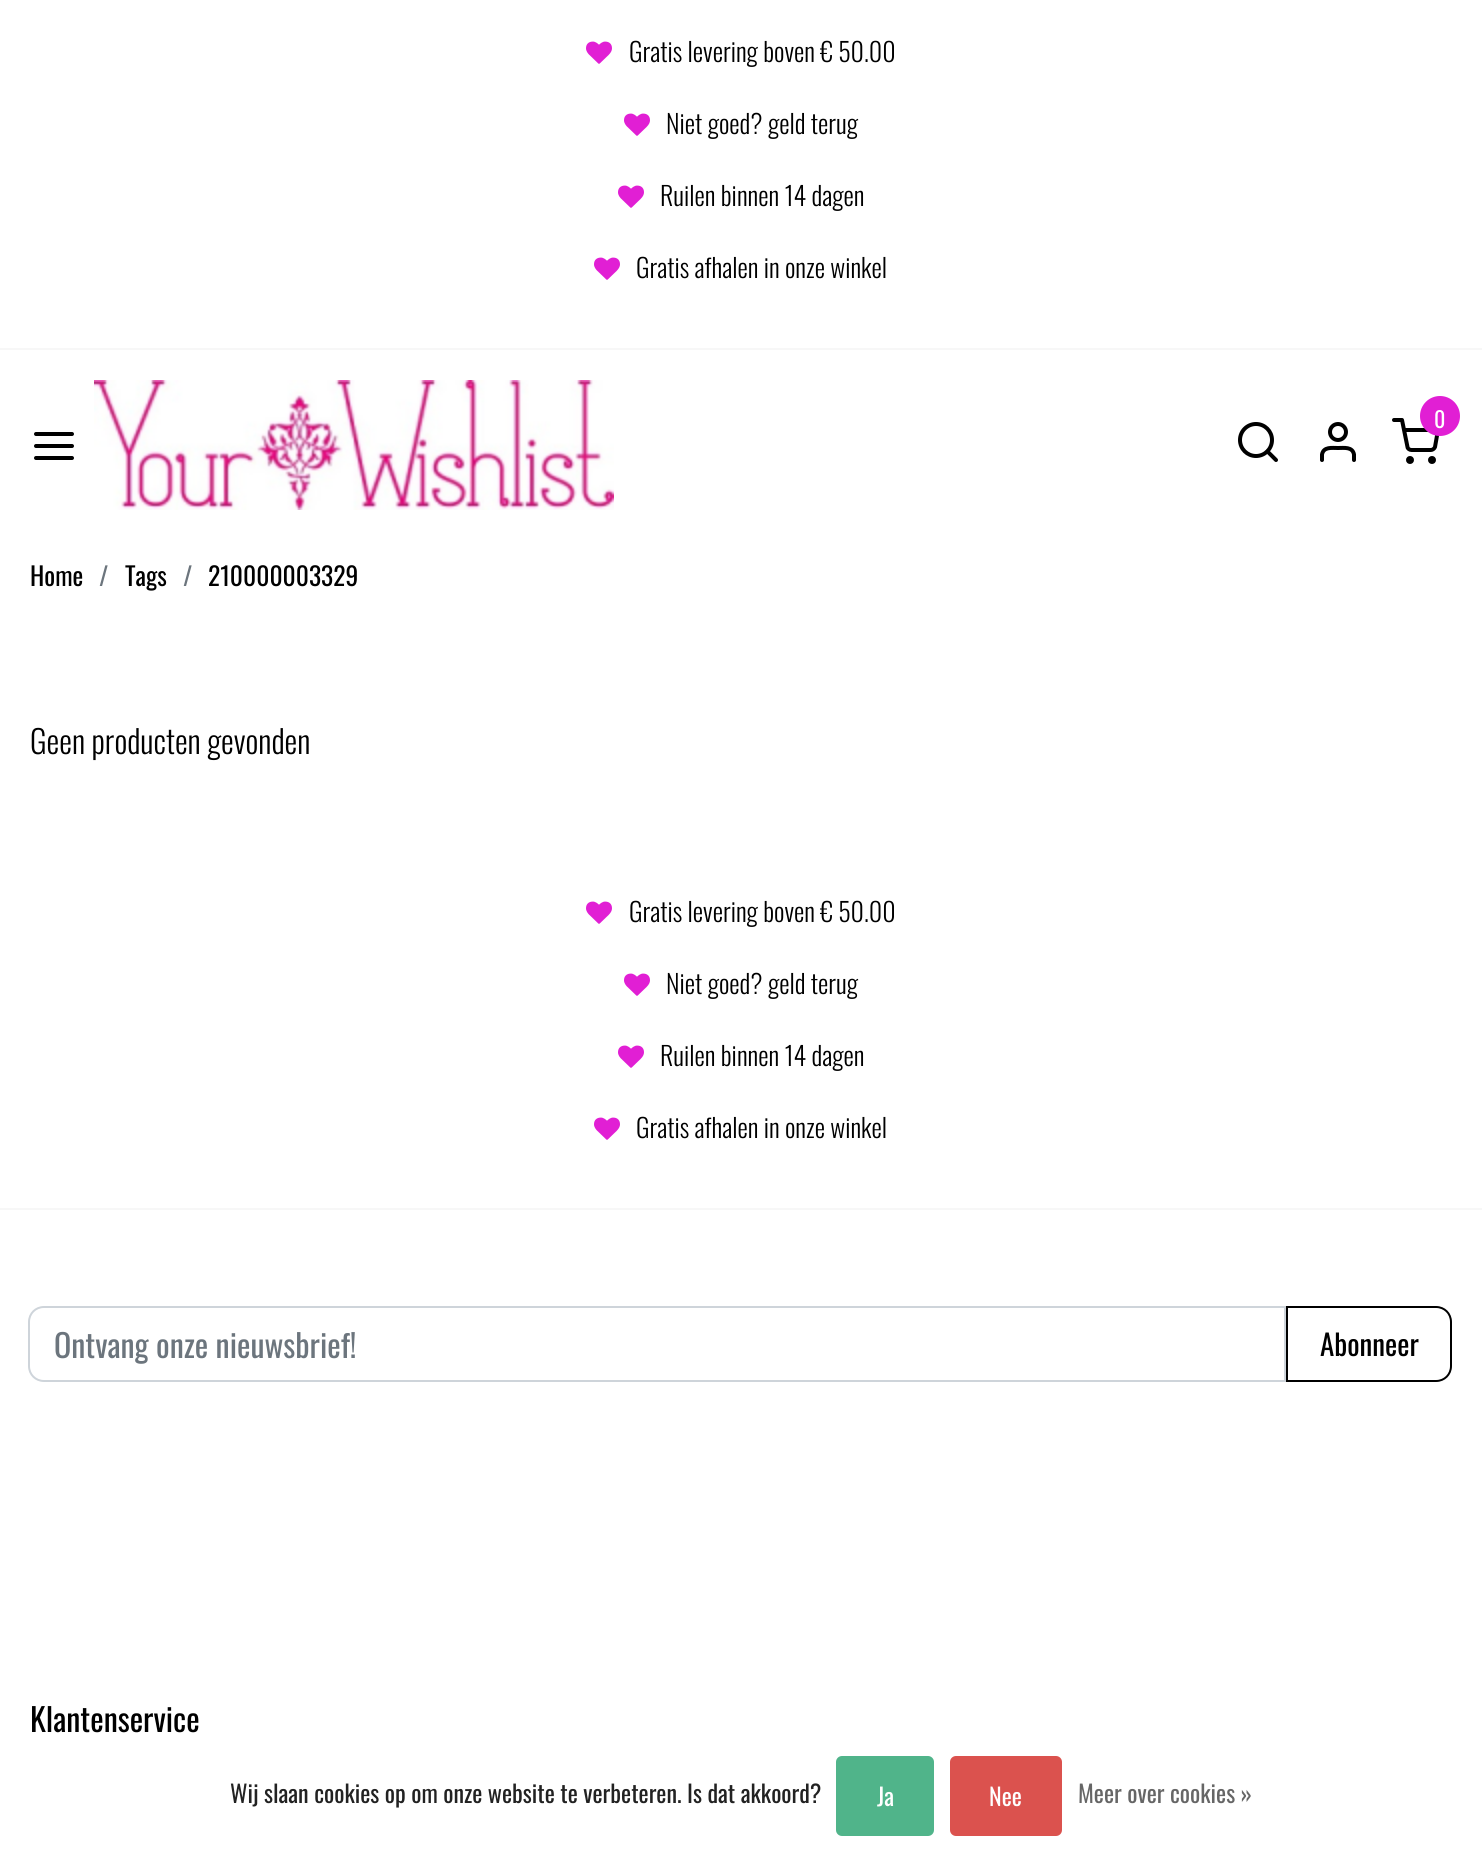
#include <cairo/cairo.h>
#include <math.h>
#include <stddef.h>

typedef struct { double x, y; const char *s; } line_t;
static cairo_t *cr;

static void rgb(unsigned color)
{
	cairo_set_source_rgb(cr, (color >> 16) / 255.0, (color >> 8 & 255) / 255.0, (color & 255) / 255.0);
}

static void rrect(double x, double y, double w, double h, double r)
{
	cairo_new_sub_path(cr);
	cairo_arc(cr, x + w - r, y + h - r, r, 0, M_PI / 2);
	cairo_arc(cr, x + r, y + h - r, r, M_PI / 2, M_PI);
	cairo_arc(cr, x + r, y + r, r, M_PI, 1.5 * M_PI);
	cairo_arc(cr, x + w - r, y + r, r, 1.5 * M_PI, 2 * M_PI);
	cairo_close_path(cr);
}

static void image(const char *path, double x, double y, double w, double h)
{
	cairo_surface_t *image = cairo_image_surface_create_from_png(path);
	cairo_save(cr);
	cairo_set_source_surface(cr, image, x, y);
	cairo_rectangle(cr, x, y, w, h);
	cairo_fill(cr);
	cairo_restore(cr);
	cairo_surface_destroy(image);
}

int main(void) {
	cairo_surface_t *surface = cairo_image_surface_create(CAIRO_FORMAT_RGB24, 1482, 1876);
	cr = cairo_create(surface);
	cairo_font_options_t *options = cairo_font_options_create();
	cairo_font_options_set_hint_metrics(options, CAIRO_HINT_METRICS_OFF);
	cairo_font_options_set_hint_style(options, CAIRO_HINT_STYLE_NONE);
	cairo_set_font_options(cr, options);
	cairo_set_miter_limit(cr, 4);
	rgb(0xffffff);
	cairo_paint(cr);
	rgb(0xf7f7f7);
	cairo_rectangle(cr, 0, 348, 1482, 2);
	cairo_fill(cr);
	image("img/1.png", 586, 41, 26, 23);
	image("img/1.png", 624, 113, 26, 23);
	image("img/1.png", 618, 185, 26, 23);
	image("img/1.png", 594, 257, 26, 23);
	cairo_new_path(cr);
	cairo_move_to(cr, 36, 446);
	cairo_line_to(cr, 72, 446);
	cairo_move_to(cr, 36, 434);
	cairo_line_to(cr, 72, 434);
	cairo_move_to(cr, 36, 458);
	cairo_line_to(cr, 72, 458);
	rgb(0x000000);
	cairo_set_line_width(cr, 4);
	cairo_set_line_cap(cr, CAIRO_LINE_CAP_ROUND);
	cairo_set_line_join(cr, CAIRO_LINE_JOIN_ROUND);
	cairo_stroke(cr);
	image("img/2.png", 94, 380, 520, 130);
	cairo_new_path(cr);
	cairo_move_to(cr, 1394, 420);
	cairo_line_to(cr, 1402, 420);
	cairo_line_to(cr, 1407.5, 447);
	cairo_curve_to(cr, 1407.5, 448.5, 1409.5, 450, 1411.5, 450);
	cairo_line_to(cr, 1431, 450);
	cairo_curve_to(cr, 1432.5, 450, 1434.5, 448.5, 1435, 447);
	cairo_line_to(cr, 1438, 430);
	cairo_line_to(cr, 1404, 430);
	cairo_stroke(cr);
	rgb(0xe11fd4);
	cairo_arc(cr, 1440, 416, 20, 0, 2 * M_PI);
	cairo_fill(cr);
	cairo_arc(cr, 1410, 460, 2, 0, 2 * M_PI);
	rgb(0x000000);
	cairo_set_line_cap(cr, CAIRO_LINE_CAP_BUTT);
	cairo_set_line_join(cr, CAIRO_LINE_JOIN_MITER);
	cairo_stroke(cr);
	cairo_arc(cr, 1432, 460, 2, 0, 2 * M_PI);
	cairo_stroke(cr);
	cairo_arc(cr, 1256, 440, 16, 0, 2 * M_PI);
	cairo_stroke(cr);
	cairo_new_path(cr);
	cairo_move_to(cr, 1276, 460);
	cairo_line_to(cr, 1267.5, 451.5);
	cairo_set_line_cap(cr, CAIRO_LINE_CAP_ROUND);
	cairo_set_line_join(cr, CAIRO_LINE_JOIN_ROUND);
	cairo_stroke(cr);
	cairo_new_path(cr);
	cairo_move_to(cr, 1354, 460);
	cairo_line_to(cr, 1354, 454.5);
	cairo_curve_to(cr, 1352.5, 446.5, 1344, 448, 1338, 448);
	cairo_curve_to(cr, 1332, 448, 1323.5, 446.5, 1322, 454.5);
	cairo_line_to(cr, 1322, 460);
	cairo_stroke(cr);
	cairo_arc(cr, 1338, 432, 8, 0, 2 * M_PI);
	cairo_set_line_cap(cr, CAIRO_LINE_CAP_BUTT);
	cairo_set_line_join(cr, CAIRO_LINE_JOIN_MITER);
	cairo_stroke(cr);
	rgb(0xf7f7f7);
	cairo_rectangle(cr, 0, 1208, 1482, 2);
	cairo_fill(cr);
	image("img/1.png", 586, 901, 26, 23);
	image("img/1.png", 624, 973, 26, 23);
	image("img/1.png", 618, 1045, 26, 23);
	image("img/1.png", 594, 1117, 26, 23);
	cairo_new_path(cr);
	cairo_move_to(cr, 44, 1307);
	cairo_line_to(cr, 1285, 1307);
	cairo_line_to(cr, 1285, 1381);
	cairo_line_to(cr, 44, 1381);
	cairo_curve_to(cr, 35.5, 1381, 29, 1374.5, 29, 1366);
	cairo_line_to(cr, 29, 1322);
	cairo_curve_to(cr, 29, 1313.5, 35.5, 1307, 44, 1307);
	cairo_close_path(cr);
	rgb(0xced4da);
	cairo_set_line_width(cr, 2);
	cairo_stroke(cr);
	cairo_new_path(cr);
	cairo_move_to(cr, 1287, 1307);
	cairo_line_to(cr, 1436, 1307);
	cairo_curve_to(cr, 1444.5, 1307, 1451, 1313.5, 1451, 1322);
	cairo_line_to(cr, 1451, 1366);
	cairo_curve_to(cr, 1451, 1374.5, 1444.5, 1381, 1436, 1381);
	cairo_line_to(cr, 1287, 1381);
	cairo_close_path(cr);
	rgb(0x000000);
	cairo_stroke(cr);
	rgb(0x50b48a);
	rrect(836, 1756, 98, 80, 6);
	cairo_fill(cr);
	rgb(0xdb524e);
	rrect(950, 1756, 112, 80, 6);
	cairo_fill(cr);
	cairo_select_font_face(cr, "Oswald Light", CAIRO_FONT_SLANT_NORMAL, CAIRO_FONT_WEIGHT_NORMAL);
	cairo_set_font_size(cr, 26);
	rgb(0x000000);
	{
		static const line_t items[] = {
			{629, 62, "Gratis levering boven € 50.00"},
			{666, 134, "Niet goed? geld terug"},
			{660, 206, "Ruilen binnen 14 dagen"},
			{636, 278, "Gratis afhalen in onze winkel"},
		};
		for (size_t i = 0; i < sizeof items / sizeof *items; i++) {
			cairo_move_to(cr, items[i].x, items[i].y);
			cairo_show_text(cr, items[i].s);
		}
	}
	cairo_select_font_face(cr, "Oswald", CAIRO_FONT_SLANT_NORMAL, CAIRO_FONT_WEIGHT_NORMAL);
	cairo_set_font_size(cr, 22);
	rgb(0xffffff);
	cairo_move_to(cr, 1434, 428);
	cairo_show_text(cr, "0");
	cairo_set_font_size(cr, 25.5);
	rgb(0x000000);
	cairo_move_to(cr, 30, 586);
	cairo_show_text(cr, "Home");
	rgb(0x6c757d);
	cairo_move_to(cr, 99, 586);
	cairo_show_text(cr, "/");
	rgb(0x000000);
	cairo_move_to(cr, 125, 586);
	cairo_show_text(cr, "Tags");
	rgb(0x6c757d);
	cairo_move_to(cr, 183, 586);
	cairo_show_text(cr, "/");
	rgb(0x000000);
	cairo_move_to(cr, 208, 586);
	cairo_show_text(cr, "210000003329");
	cairo_select_font_face(cr, "Oswald Light", CAIRO_FONT_SLANT_NORMAL, CAIRO_FONT_WEIGHT_NORMAL);
	cairo_set_font_size(cr, 32);
	cairo_move_to(cr, 30, 754);
	cairo_show_text(cr, "Geen producten gevonden");
	cairo_set_font_size(cr, 26);
	{
		static const line_t items[] = {
			{629, 922, "Gratis levering boven € 50.00"},
			{666, 994, "Niet goed? geld terug"},
			{660, 1066, "Ruilen binnen 14 dagen"},
			{636, 1138, "Gratis afhalen in onze winkel"},
		};
		for (size_t i = 0; i < sizeof items / sizeof *items; i++) {
			cairo_move_to(cr, items[i].x, items[i].y);
			cairo_show_text(cr, items[i].s);
		}
	}
	cairo_select_font_face(cr, "Oswald", CAIRO_FONT_SLANT_NORMAL, CAIRO_FONT_WEIGHT_NORMAL);
	cairo_set_font_size(cr, 32);
	rgb(0x6c757d);
	cairo_move_to(cr, 54, 1358);
	cairo_show_text(cr, "Ontvang onze nieuwsbrief!");
	cairo_set_font_size(cr, 29);
	rgb(0x000000);
	cairo_move_to(cr, 1320, 1356);
	cairo_show_text(cr, "Abonneer");
	cairo_set_font_size(cr, 32);
	cairo_move_to(cr, 30, 1732);
	cairo_show_text(cr, "Klantenservice");
	cairo_set_font_size(cr, 24);
	rgb(0x222222);
	cairo_move_to(cr, 230, 1803);
	cairo_show_text(cr, "Wij slaan cookies op om onze website te verbeteren. Is dat akkoord?");
	rgb(0xffffff);
	cairo_move_to(cr, 877, 1806);
	cairo_show_text(cr, "Ja");
	cairo_move_to(cr, 989, 1806);
	cairo_show_text(cr, "Nee");
	rgb(0x666666);
	cairo_move_to(cr, 1078, 1803);
	cairo_show_text(cr, "Meer over cookies »");
	cairo_surface_write_to_png(surface, "page.png");
	cairo_font_options_destroy(options);
	cairo_destroy(cr);
	cairo_surface_destroy(surface);
	return 0;
}
